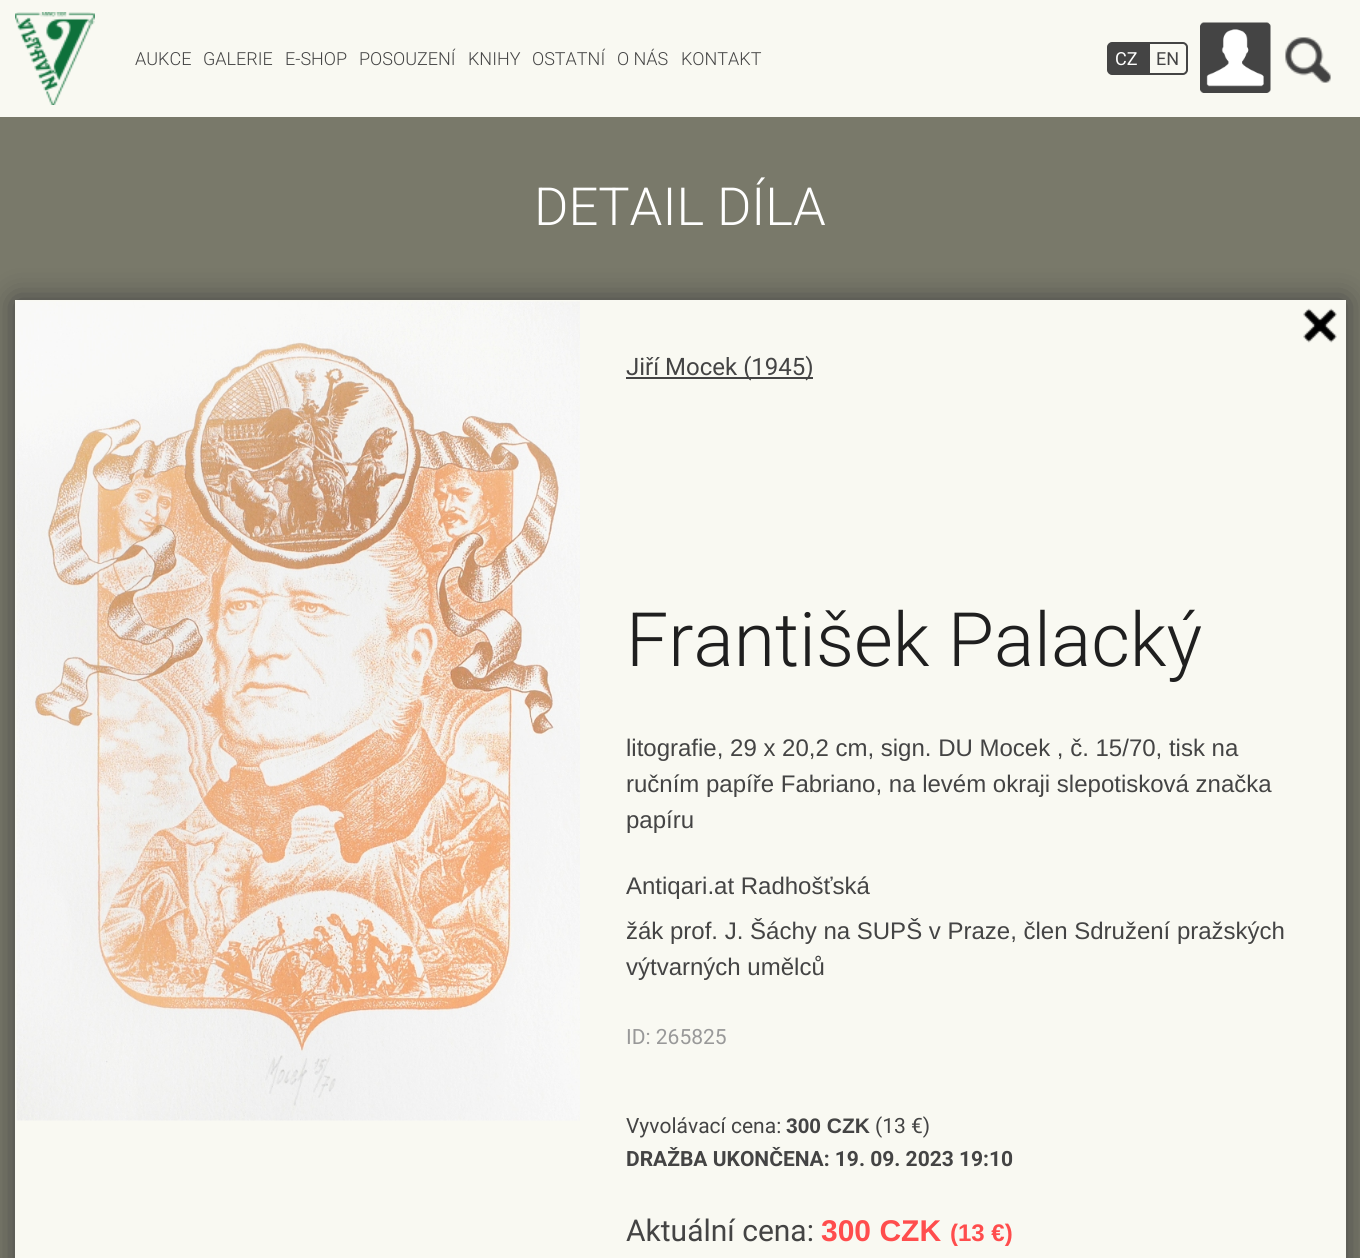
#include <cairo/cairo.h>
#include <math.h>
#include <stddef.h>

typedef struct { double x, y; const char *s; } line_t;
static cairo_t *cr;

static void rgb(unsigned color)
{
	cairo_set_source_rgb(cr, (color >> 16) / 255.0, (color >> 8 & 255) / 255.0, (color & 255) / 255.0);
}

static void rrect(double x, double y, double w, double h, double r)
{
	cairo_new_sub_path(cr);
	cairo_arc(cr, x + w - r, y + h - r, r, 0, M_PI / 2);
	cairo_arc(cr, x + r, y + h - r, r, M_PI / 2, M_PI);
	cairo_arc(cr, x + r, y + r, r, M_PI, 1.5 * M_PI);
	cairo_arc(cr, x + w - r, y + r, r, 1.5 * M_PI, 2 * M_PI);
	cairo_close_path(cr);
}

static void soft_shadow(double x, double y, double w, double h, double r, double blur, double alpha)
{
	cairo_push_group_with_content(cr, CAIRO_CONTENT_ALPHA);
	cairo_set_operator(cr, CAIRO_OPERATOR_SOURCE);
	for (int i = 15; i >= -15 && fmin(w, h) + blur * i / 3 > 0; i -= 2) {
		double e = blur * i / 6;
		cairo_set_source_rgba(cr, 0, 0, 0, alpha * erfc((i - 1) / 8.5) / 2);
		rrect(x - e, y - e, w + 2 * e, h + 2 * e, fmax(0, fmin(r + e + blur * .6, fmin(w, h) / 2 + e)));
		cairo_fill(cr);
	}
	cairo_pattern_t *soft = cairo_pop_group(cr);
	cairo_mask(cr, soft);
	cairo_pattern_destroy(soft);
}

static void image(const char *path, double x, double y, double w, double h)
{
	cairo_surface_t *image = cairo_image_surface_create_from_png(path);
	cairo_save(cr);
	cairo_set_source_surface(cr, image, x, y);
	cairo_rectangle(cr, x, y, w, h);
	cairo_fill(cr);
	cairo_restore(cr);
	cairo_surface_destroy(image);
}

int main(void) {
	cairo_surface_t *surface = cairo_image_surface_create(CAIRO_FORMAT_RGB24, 1360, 1258);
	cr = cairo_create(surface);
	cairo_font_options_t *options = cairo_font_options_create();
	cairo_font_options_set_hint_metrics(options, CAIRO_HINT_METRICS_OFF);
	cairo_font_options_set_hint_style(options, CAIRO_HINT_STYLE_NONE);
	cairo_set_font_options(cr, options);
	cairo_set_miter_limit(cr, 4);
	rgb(0x79796a);
	cairo_paint(cr);
	rgb(0xf9f9f2);
	cairo_rectangle(cr, 0, 0, 1360, 117);
	cairo_fill(cr);
	image("img/1.png", 15, 12, 80, 93);
	rgb(0x444444);
	cairo_new_path(cr);
	cairo_move_to(cr, 1112, 43);
	cairo_line_to(cr, 1147, 43);
	cairo_line_to(cr, 1147, 74);
	cairo_line_to(cr, 1112, 74);
	cairo_curve_to(cr, 1110, 74, 1108, 72, 1108, 70);
	cairo_line_to(cr, 1108, 47);
	cairo_curve_to(cr, 1108, 45, 1110, 43, 1112, 43);
	cairo_close_path(cr);
	cairo_fill_preserve(cr);
	cairo_stroke(cr);
	cairo_new_path(cr);
	cairo_move_to(cr, 1149, 43);
	cairo_line_to(cr, 1183, 43);
	cairo_curve_to(cr, 1185, 43, 1187, 45, 1187, 47);
	cairo_line_to(cr, 1187, 70);
	cairo_curve_to(cr, 1187, 72, 1185, 74, 1183, 74);
	cairo_line_to(cr, 1149, 74);
	cairo_close_path(cr);
	cairo_stroke(cr);
	image("img/2.png", 1200, 22, 71, 71);
	image("img/3.png", 1285, 37, 46, 46);
	rgb(0x444444);
	soft_shadow(15, 300, 1331, 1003, 0, 15, 1);
	rgb(0xf9f9f2);
	cairo_rectangle(cr, 15, 300, 1331, 958);
	cairo_fill(cr);
	image("img/4.png", 16, 301, 564, 820);
	image("img/5.png", 1303, 308, 34, 35);
	rgb(0x444444);
	cairo_rectangle(cr, 626, 377, 187, 2);
	cairo_fill(cr);
	cairo_select_font_face(cr, "Roboto Light", CAIRO_FONT_SLANT_NORMAL, CAIRO_FONT_WEIGHT_NORMAL);
	cairo_set_font_size(cr, 18);
	{
		static const line_t items[] = {
			{135, 65, "AUKCE"},
			{203, 65, "GALERIE"},
			{285, 65, "E-SHOP"},
			{359, 65, "POSOUZENÍ"},
			{468, 65, "KNIHY"},
			{532, 65, "OSTATNÍ"},
			{617, 65, "O NÁS"},
			{681, 65, "KONTAKT"},
		};
		for (size_t i = 0; i < sizeof items / sizeof *items; i++) {
			cairo_move_to(cr, items[i].x, items[i].y);
			cairo_show_text(cr, items[i].s);
		}
	}
	cairo_select_font_face(cr, "Roboto", CAIRO_FONT_SLANT_NORMAL, CAIRO_FONT_WEIGHT_NORMAL);
	rgb(0xffffff);
	cairo_move_to(cr, 1115, 65);
	cairo_show_text(cr, "CZ");
	rgb(0x444444);
	cairo_move_to(cr, 1156, 65);
	cairo_show_text(cr, "EN");
	cairo_select_font_face(cr, "Roboto Light", CAIRO_FONT_SLANT_NORMAL, CAIRO_FONT_WEIGHT_NORMAL);
	cairo_set_font_size(cr, 52.5);
	rgb(0xffffff);
	cairo_move_to(cr, 534, 225);
	cairo_show_text(cr, "DETAIL DÍLA");
	cairo_select_font_face(cr, "Roboto", CAIRO_FONT_SLANT_NORMAL, CAIRO_FONT_WEIGHT_NORMAL);
	cairo_set_font_size(cr, 24);
	rgb(0x444444);
	cairo_move_to(cr, 626, 375);
	cairo_show_text(cr, "Jiří Mocek (1945)");
	cairo_select_font_face(cr, "Roboto Light", CAIRO_FONT_SLANT_NORMAL, CAIRO_FONT_WEIGHT_NORMAL);
	cairo_set_font_size(cr, 75);
	rgb(0x1f1f1f);
	cairo_move_to(cr, 626, 666);
	cairo_show_text(cr, "František Palacký");
	cairo_select_font_face(cr, "Liberation Sans", CAIRO_FONT_SLANT_NORMAL, CAIRO_FONT_WEIGHT_NORMAL);
	cairo_set_font_size(cr, 24);
	rgb(0x444444);
	{
		static const line_t items[] = {
			{626, 756, "litografie, 29 x 20,2 cm, sign. DU Mocek , č. 15/70, tisk na"},
			{626, 792, "ručním papíře Fabriano, na levém okraji slepotisková značka"},
			{626, 828, "papíru"},
			{626, 894, "Antiqari.at Radhošťská"},
			{626, 939, "žák prof. J. Šáchy na SUPŠ v Praze, člen Sdružení pražských"},
			{626, 975, "výtvarných umělců"},
		};
		for (size_t i = 0; i < sizeof items / sizeof *items; i++) {
			cairo_move_to(cr, items[i].x, items[i].y);
			cairo_show_text(cr, items[i].s);
		}
	}
	cairo_select_font_face(cr, "Roboto", CAIRO_FONT_SLANT_NORMAL, CAIRO_FONT_WEIGHT_NORMAL);
	cairo_set_font_size(cr, 21);
	rgb(0x999999);
	cairo_move_to(cr, 626, 1044);
	cairo_show_text(cr, "ID: 265825");
	rgb(0x444444);
	cairo_move_to(cr, 626, 1133);
	cairo_show_text(cr, "Vyvolávací cena:");
	cairo_select_font_face(cr, "Liberation Sans", CAIRO_FONT_SLANT_NORMAL, CAIRO_FONT_WEIGHT_BOLD);
	cairo_move_to(cr, 786, 1133);
	cairo_show_text(cr, "300 CZK");
	cairo_select_font_face(cr, "Roboto", CAIRO_FONT_SLANT_NORMAL, CAIRO_FONT_WEIGHT_NORMAL);
	cairo_move_to(cr, 875, 1133);
	cairo_show_text(cr, "(13 €)");
	cairo_select_font_face(cr, "Roboto", CAIRO_FONT_SLANT_NORMAL, CAIRO_FONT_WEIGHT_BOLD);
	cairo_move_to(cr, 626, 1166);
	cairo_show_text(cr, "DRAŽBA UKONČENA: 19. 09. 2023 19:10");
	cairo_select_font_face(cr, "Roboto", CAIRO_FONT_SLANT_NORMAL, CAIRO_FONT_WEIGHT_NORMAL);
	cairo_set_font_size(cr, 30);
	cairo_move_to(cr, 626, 1241);
	cairo_show_text(cr, "Aktuální cena:");
	cairo_select_font_face(cr, "Liberation Sans", CAIRO_FONT_SLANT_NORMAL, CAIRO_FONT_WEIGHT_BOLD);
	rgb(0xff4d4d);
	cairo_move_to(cr, 821, 1241);
	cairo_show_text(cr, "300 CZK");
	cairo_set_font_size(cr, 24);
	cairo_move_to(cr, 950, 1241);
	cairo_show_text(cr, "(13 €)");
	cairo_surface_write_to_png(surface, "page.png");
	cairo_font_options_destroy(options);
	cairo_destroy(cr);
	cairo_surface_destroy(surface);
	return 0;
}
